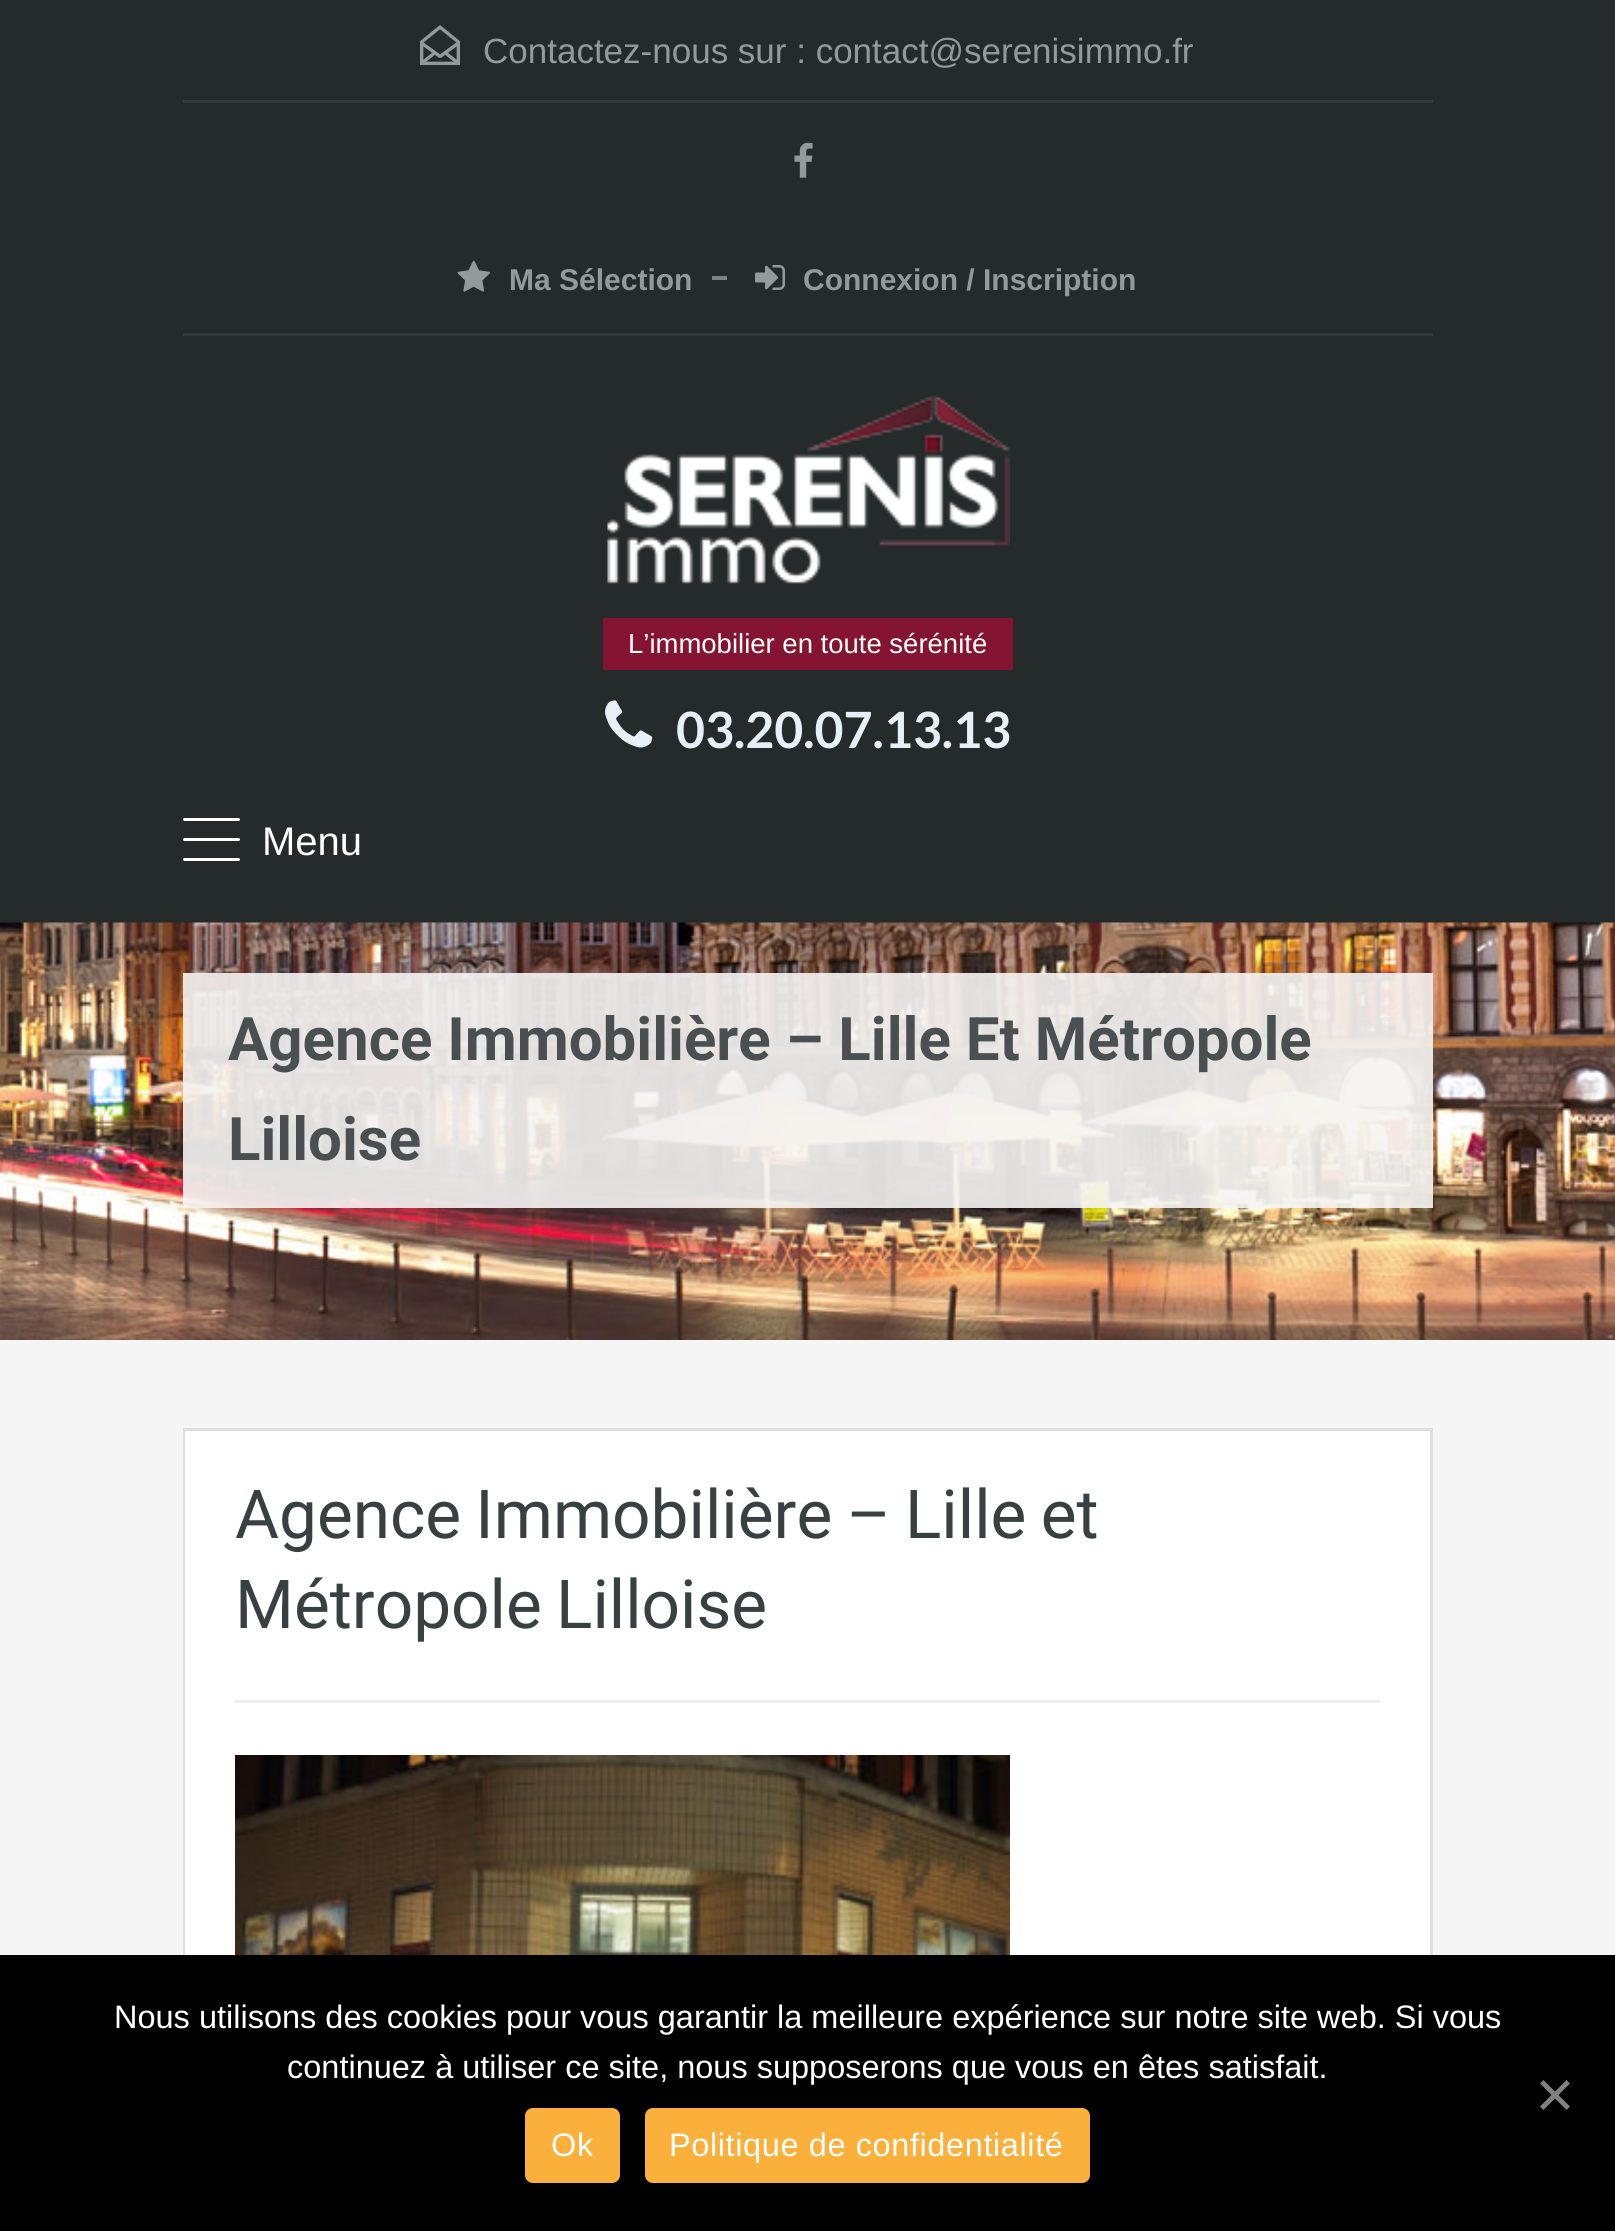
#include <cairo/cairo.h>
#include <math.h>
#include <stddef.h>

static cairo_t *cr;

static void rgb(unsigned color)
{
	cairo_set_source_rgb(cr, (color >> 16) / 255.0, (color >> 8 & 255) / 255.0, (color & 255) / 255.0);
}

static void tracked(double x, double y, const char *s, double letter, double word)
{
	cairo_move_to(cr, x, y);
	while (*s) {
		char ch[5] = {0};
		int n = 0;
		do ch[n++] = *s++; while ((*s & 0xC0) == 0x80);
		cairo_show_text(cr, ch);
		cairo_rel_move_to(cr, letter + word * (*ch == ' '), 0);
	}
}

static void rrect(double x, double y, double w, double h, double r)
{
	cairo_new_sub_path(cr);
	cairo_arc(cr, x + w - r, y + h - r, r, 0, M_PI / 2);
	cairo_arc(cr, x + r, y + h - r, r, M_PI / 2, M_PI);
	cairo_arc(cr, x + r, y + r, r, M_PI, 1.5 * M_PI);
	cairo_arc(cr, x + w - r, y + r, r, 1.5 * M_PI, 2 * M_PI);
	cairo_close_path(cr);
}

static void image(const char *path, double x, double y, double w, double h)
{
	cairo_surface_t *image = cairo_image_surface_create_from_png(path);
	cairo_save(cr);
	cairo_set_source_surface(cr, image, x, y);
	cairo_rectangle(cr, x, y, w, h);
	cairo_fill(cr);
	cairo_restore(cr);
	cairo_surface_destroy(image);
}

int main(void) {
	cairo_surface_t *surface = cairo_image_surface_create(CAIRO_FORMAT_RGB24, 1615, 2231);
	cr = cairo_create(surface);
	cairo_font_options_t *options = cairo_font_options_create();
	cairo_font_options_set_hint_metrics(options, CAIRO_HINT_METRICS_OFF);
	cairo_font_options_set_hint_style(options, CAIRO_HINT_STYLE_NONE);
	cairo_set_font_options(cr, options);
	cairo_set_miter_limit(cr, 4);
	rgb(0xf5f5f5);
	cairo_paint(cr);
	rgb(0x252a2b);
	cairo_rectangle(cr, 0, 0, 1615, 923);
	cairo_fill(cr);
	rgb(0x343a3b);
	cairo_rectangle(cr, 183, 333, 1250, 3);
	cairo_fill(cr);
	image("img/1.png", 420, 25, 40, 40);
	cairo_rectangle(cr, 183, 100, 1250, 3);
	cairo_fill(cr);
	image("img/2.png", 794, 142, 19, 36);
	image("img/3.png", 457, 260, 33, 32);
	rgb(0x7c8485);
	cairo_rectangle(cr, 712, 276, 15, 4);
	cairo_fill(cr);
	image("img/4.png", 755, 265, 30, 25);
	image("img/5.png", 607, 395, 403, 189);
	rgb(0x851432);
	cairo_rectangle(cr, 603, 618, 410, 52);
	cairo_fill(cr);
	image("img/6.png", 605, 700, 48, 48);
	rgb(0xffffff);
	rrect(183, 838, 57, 3, 1.5);
	cairo_fill(cr);
	rrect(183, 818, 57, 3, 1.5);
	cairo_fill(cr);
	rrect(183, 858, 57, 3, 1.5);
	cairo_fill(cr);
	image("img/7.png", 0, 922, 1615, 418);
	cairo_set_source_rgba(cr, 0.961, 0.957, 0.953, 0.9);
	cairo_rectangle(cr, 183, 973, 1250, 235);
	cairo_fill(cr);
	rgb(0xdedede);
	cairo_rectangle(cr, 1430, 1428, 3, 527);
	cairo_fill(cr);
	cairo_rectangle(cr, 183, 1428, 2, 527);
	cairo_fill(cr);
	rgb(0xffffff);
	cairo_rectangle(cr, 185, 1431, 1245, 524);
	cairo_fill(cr);
	rgb(0xdedede);
	cairo_rectangle(cr, 185, 1428, 1245, 3);
	cairo_fill(cr);
	rgb(0xeeeeee);
	cairo_rectangle(cr, 235, 1700, 1145, 3);
	cairo_fill(cr);
	image("img/8.png", 235, 1755, 775, 200);
	rgb(0x000000);
	cairo_rectangle(cr, 0, 1955, 1615, 276);
	cairo_fill(cr);
	rgb(0x808080);
	cairo_new_path(cr);
	cairo_move_to(cr, 1566.5, 2080);
	cairo_line_to(cr, 1570, 2083.5);
	cairo_line_to(cr, 1543.5, 2110);
	cairo_line_to(cr, 1540, 2106.5);
	cairo_close_path(cr);
	cairo_fill(cr);
	cairo_new_path(cr);
	cairo_move_to(cr, 1540, 2083.5);
	cairo_line_to(cr, 1543.5, 2080);
	cairo_line_to(cr, 1570, 2106.5);
	cairo_line_to(cr, 1566.5, 2110);
	cairo_close_path(cr);
	cairo_fill(cr);
	rgb(0xfbb03b);
	rrect(525, 2108, 95, 75, 8);
	cairo_fill(cr);
	rrect(645, 2108, 445, 75, 8);
	cairo_fill(cr);
	cairo_select_font_face(cr, "Liberation Sans", CAIRO_FONT_SLANT_NORMAL, CAIRO_FONT_WEIGHT_NORMAL);
	cairo_set_font_size(cr, 35);
	rgb(0x929a9b);
	cairo_move_to(cr, 483, 63);
	cairo_show_text(cr, "Contactez-nous sur : contact@serenisimmo.fr");
	cairo_select_font_face(cr, "Liberation Sans", CAIRO_FONT_SLANT_NORMAL, CAIRO_FONT_WEIGHT_BOLD);
	cairo_set_font_size(cr, 30);
	cairo_move_to(cr, 509, 290);
	cairo_show_text(cr, "Ma Sélection");
	cairo_move_to(cr, 803, 290);
	cairo_show_text(cr, "Connexion / Inscription");
	cairo_select_font_face(cr, "Liberation Sans", CAIRO_FONT_SLANT_NORMAL, CAIRO_FONT_WEIGHT_NORMAL);
	cairo_set_font_size(cr, 27.5);
	rgb(0xffffff);
	cairo_move_to(cr, 628, 653);
	cairo_show_text(cr, "L’immobilier en toute sérénité");
	cairo_select_font_face(cr, "Lato", CAIRO_FONT_SLANT_NORMAL, CAIRO_FONT_WEIGHT_BOLD);
	cairo_set_font_size(cr, 50);
	rgb(0xe7eff7);
	cairo_move_to(cr, 676, 748);
	cairo_show_text(cr, "03.20.07.13.13");
	cairo_select_font_face(cr, "Liberation Sans", CAIRO_FONT_SLANT_NORMAL, CAIRO_FONT_WEIGHT_NORMAL);
	cairo_set_font_size(cr, 40);
	rgb(0xffffff);
	cairo_move_to(cr, 262, 855);
	cairo_show_text(cr, "Menu");
	cairo_select_font_face(cr, "Roboto", CAIRO_FONT_SLANT_NORMAL, CAIRO_FONT_WEIGHT_BOLD);
	cairo_set_font_size(cr, 60);
	rgb(0x4a5051);
	cairo_move_to(cr, 228, 1060);
	cairo_show_text(cr, "Agence Immobilière – Lille Et Métropole");
	cairo_move_to(cr, 228, 1160);
	cairo_show_text(cr, "Lilloise");
	cairo_select_font_face(cr, "Roboto", CAIRO_FONT_SLANT_NORMAL, CAIRO_FONT_WEIGHT_NORMAL);
	cairo_set_font_size(cr, 67.5);
	rgb(0x394041);
	tracked(235, 1538, "Agence Immobilière – Lille et", 0, -2.5);
	tracked(235, 1628, "Métropole Lilloise", 0, -2.5);
	cairo_select_font_face(cr, "Liberation Sans", CAIRO_FONT_SLANT_NORMAL, CAIRO_FONT_WEIGHT_NORMAL);
	cairo_set_font_size(cr, 32.5);
	rgb(0xffffff);
	cairo_move_to(cr, 114, 2028);
	cairo_show_text(cr, "Nous utilisons des cookies pour vous garantir la meilleure expérience sur notre site web. Si vous");
	cairo_move_to(cr, 287, 2078);
	cairo_show_text(cr, "continuez à utiliser ce site, nous supposerons que vous en êtes satisfait.");
	tracked(551, 2156, "Ok", 0.6, 0);
	tracked(669, 2156, "Politique de confidentialité", 0.6, 0);
	cairo_surface_write_to_png(surface, "page.png");
	cairo_font_options_destroy(options);
	cairo_destroy(cr);
	cairo_surface_destroy(surface);
	return 0;
}
